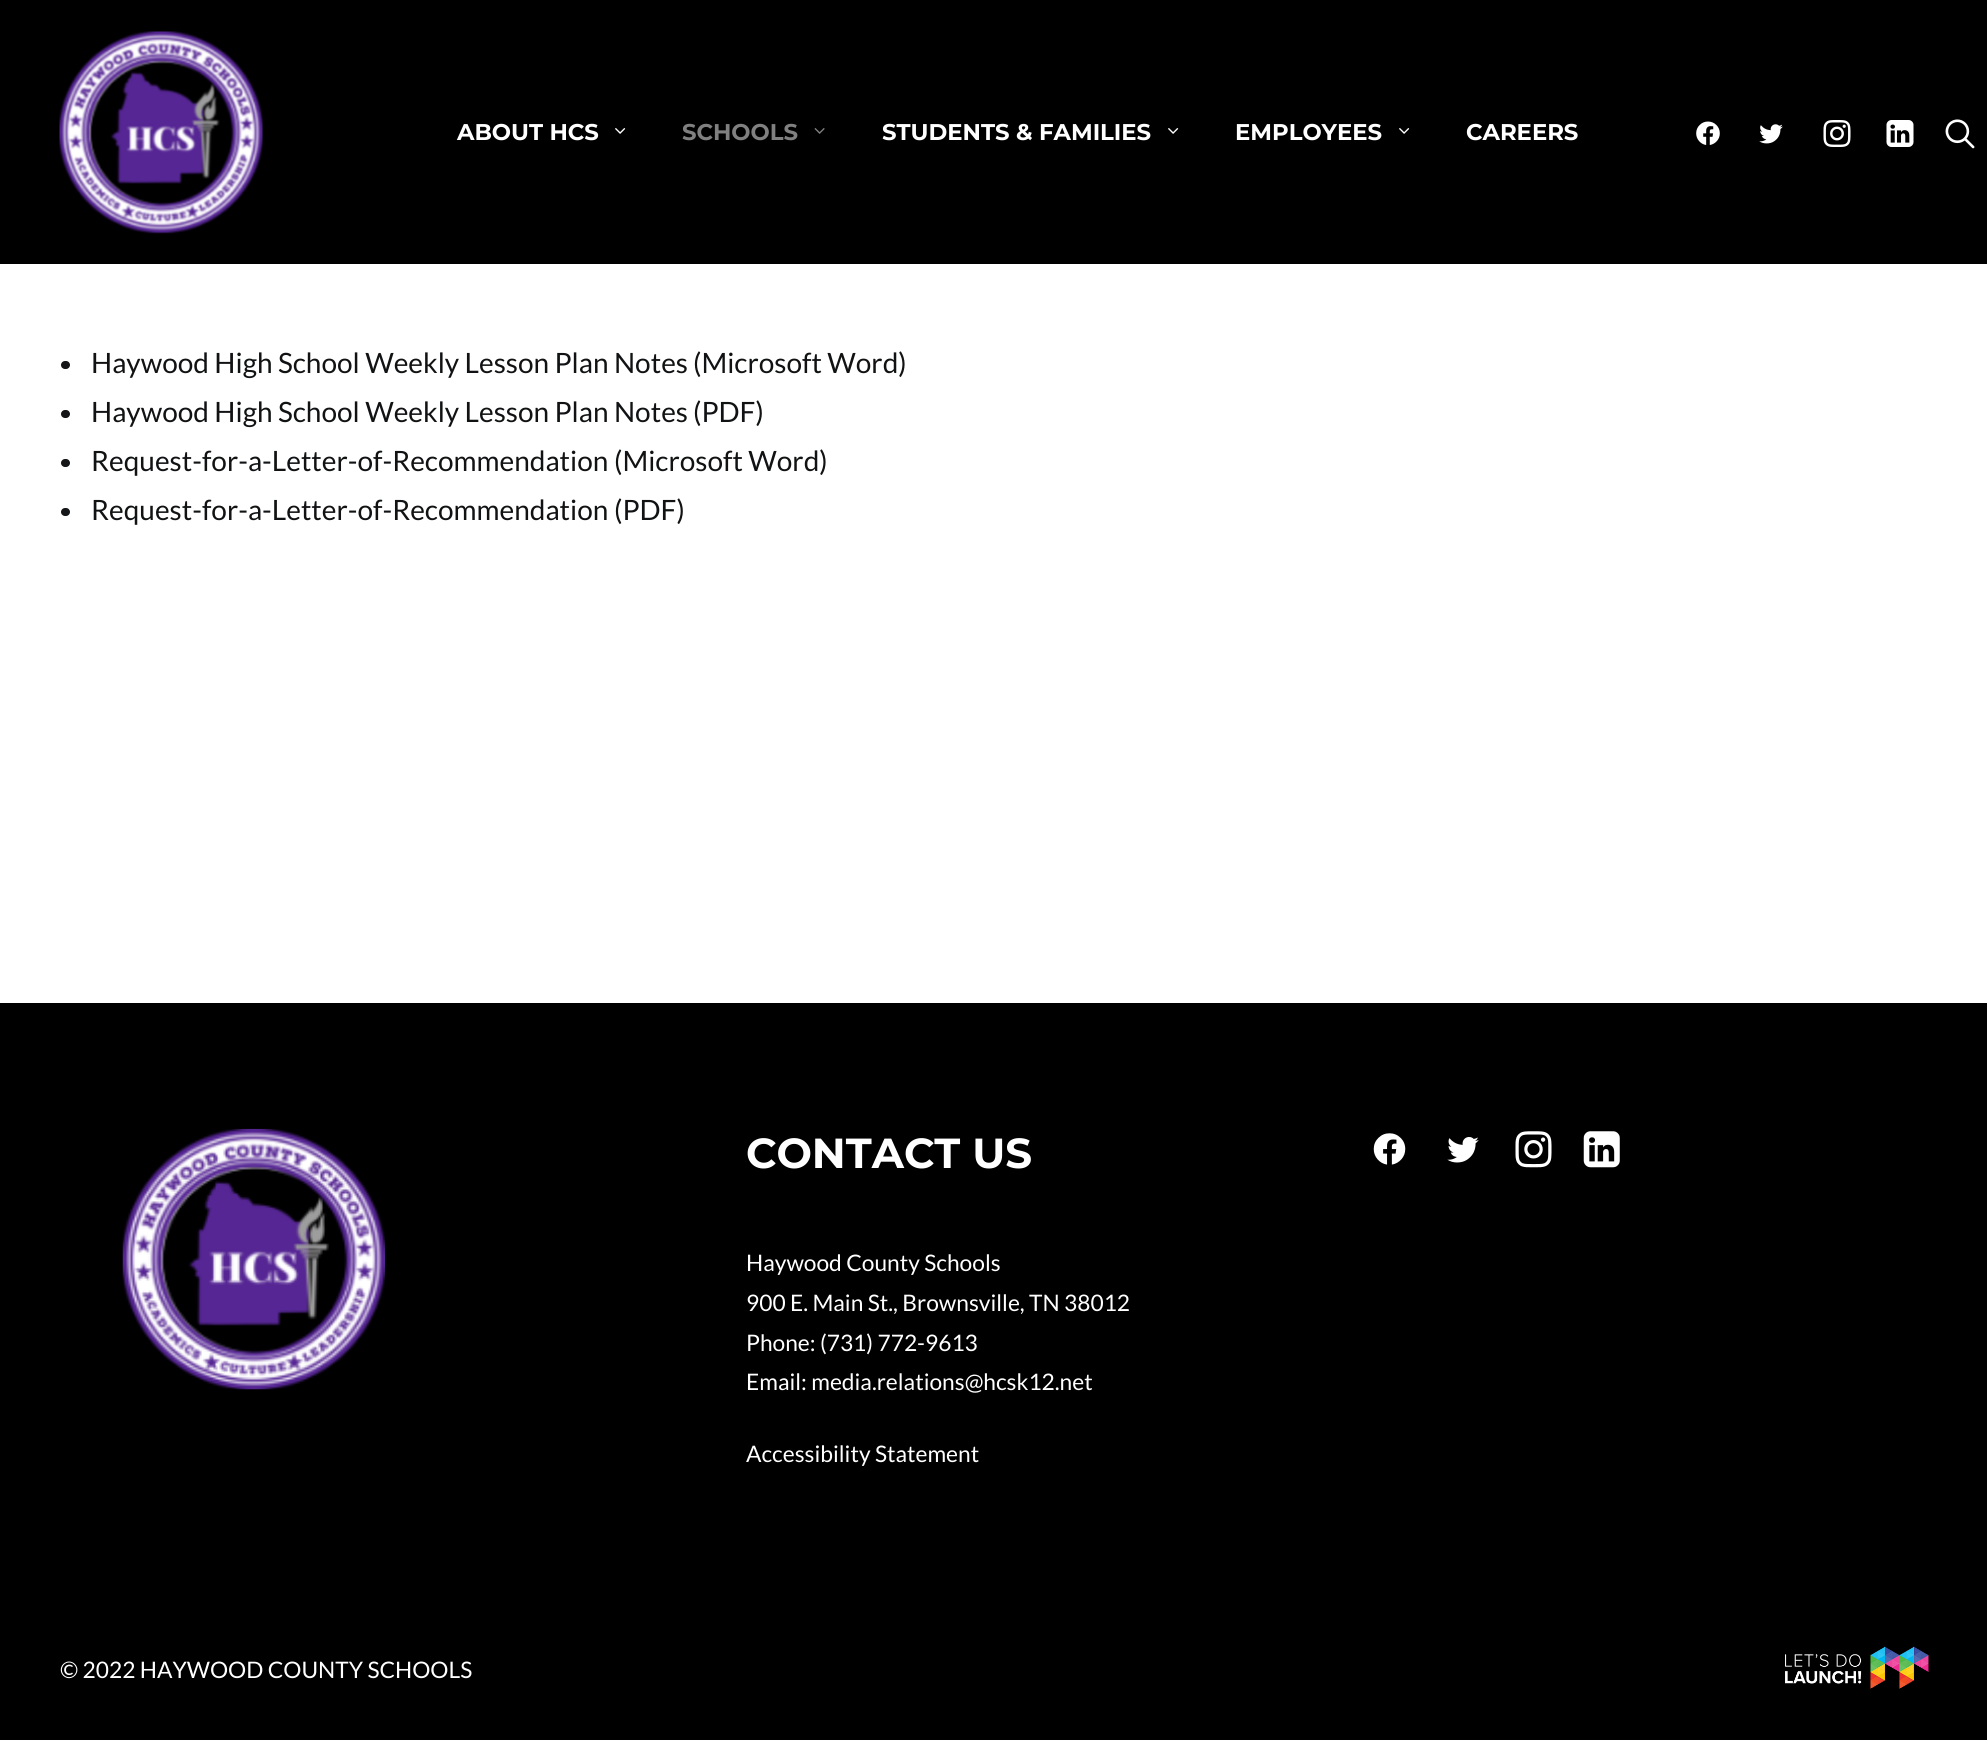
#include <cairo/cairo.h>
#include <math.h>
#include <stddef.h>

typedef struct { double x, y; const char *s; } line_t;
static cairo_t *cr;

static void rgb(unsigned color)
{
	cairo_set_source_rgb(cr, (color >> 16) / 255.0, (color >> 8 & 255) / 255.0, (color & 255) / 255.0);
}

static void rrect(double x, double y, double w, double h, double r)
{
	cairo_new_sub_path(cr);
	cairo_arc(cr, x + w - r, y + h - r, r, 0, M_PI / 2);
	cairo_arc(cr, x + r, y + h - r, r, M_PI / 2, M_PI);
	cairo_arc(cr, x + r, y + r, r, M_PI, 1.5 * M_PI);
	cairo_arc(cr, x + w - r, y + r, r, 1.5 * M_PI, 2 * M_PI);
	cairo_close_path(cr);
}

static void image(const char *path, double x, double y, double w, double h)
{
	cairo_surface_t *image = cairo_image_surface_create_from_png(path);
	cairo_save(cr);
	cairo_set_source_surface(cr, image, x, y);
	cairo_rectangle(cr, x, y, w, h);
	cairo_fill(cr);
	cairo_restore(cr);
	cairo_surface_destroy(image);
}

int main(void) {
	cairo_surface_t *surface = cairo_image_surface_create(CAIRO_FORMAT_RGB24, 1987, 1740);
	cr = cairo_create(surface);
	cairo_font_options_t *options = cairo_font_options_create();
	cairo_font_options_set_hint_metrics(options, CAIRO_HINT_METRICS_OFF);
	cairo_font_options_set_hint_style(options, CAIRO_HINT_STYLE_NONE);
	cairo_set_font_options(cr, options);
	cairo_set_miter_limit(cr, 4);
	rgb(0xffffff);
	cairo_paint(cr);
	rgb(0x000000);
	cairo_rectangle(cr, 0, 0, 1987, 264);
	cairo_fill(cr);
	image("img/1.png", 59, 31, 204, 203);
	image("img/2.png", 615, 128, 11, 6);
	image("img/3.png", 814, 128, 11, 6);
	image("img/2.png", 1168, 128, 11, 6);
	image("img/2.png", 1399, 128, 11, 6);
	image("img/4.png", 1696, 121, 24, 24);
	image("img/5.png", 1759, 124, 24, 20);
	image("img/6.png", 1823, 120, 28, 27);
	image("img/7.png", 1886, 120, 28, 27);
	image("img/8.png", 1945, 119, 30, 30);
	rgb(0x141618);
	rrect(61, 361, 9, 8, 4);
	cairo_fill(cr);
	rrect(61, 410, 9, 8, 4);
	cairo_fill(cr);
	rrect(61, 459, 9, 8, 4);
	cairo_fill(cr);
	rrect(61, 508, 9, 8, 4);
	cairo_fill(cr);
	rgb(0x000000);
	cairo_rectangle(cr, 0, 1003, 1987, 737);
	cairo_fill(cr);
	image("img/9.png", 122, 1128, 263, 262);
	image("img/10.png", 1373, 1133, 33, 32);
	image("img/11.png", 1447, 1137, 32, 26);
	image("img/12.png", 1515, 1131, 37, 37);
	image("img/13.png", 1583, 1131, 37, 37);
	image("img/14.png", 1785, 1646, 144, 43);
	cairo_select_font_face(cr, "Montserrat", CAIRO_FONT_SLANT_NORMAL, CAIRO_FONT_WEIGHT_BOLD);
	cairo_set_font_size(cr, 22.75);
	rgb(0xffffff);
	cairo_move_to(cr, 457, 140);
	cairo_show_text(cr, "ABOUT HCS");
	rgb(0x808080);
	cairo_move_to(cr, 682, 140);
	cairo_show_text(cr, "SCHOOLS");
	rgb(0xffffff);
	{
		static const line_t items[] = {
			{882, 140, "STUDENTS & FAMILIES"},
			{1235, 140, "EMPLOYEES"},
			{1466, 140, "CAREERS"},
		};
		for (size_t i = 0; i < sizeof items / sizeof *items; i++) {
			cairo_move_to(cr, items[i].x, items[i].y);
			cairo_show_text(cr, items[i].s);
		}
	}
	cairo_select_font_face(cr, "Lato", CAIRO_FONT_SLANT_NORMAL, CAIRO_FONT_WEIGHT_NORMAL);
	cairo_set_font_size(cr, 28);
	rgb(0x101213);
	{
		static const line_t items[] = {
			{91, 373, "Haywood High School Weekly Lesson Plan Notes"},
			{693, 373, "(Microsoft Word)"},
			{91, 422, "Haywood High School Weekly Lesson Plan Notes"},
			{693, 422, "(PDF)"},
			{91, 471, "Request-for-a-Letter-of-Recommendation"},
			{614, 471, "(Microsoft Word)"},
			{91, 520, "Request-for-a-Letter-of-Recommendation"},
			{614, 520, "(PDF)"},
		};
		for (size_t i = 0; i < sizeof items / sizeof *items; i++) {
			cairo_move_to(cr, items[i].x, items[i].y);
			cairo_show_text(cr, items[i].s);
		}
	}
	cairo_select_font_face(cr, "Montserrat", CAIRO_FONT_SLANT_NORMAL, CAIRO_FONT_WEIGHT_BOLD);
	cairo_set_font_size(cr, 42);
	rgb(0xffffff);
	cairo_move_to(cr, 746, 1168);
	cairo_show_text(cr, "CONTACT US");
	cairo_select_font_face(cr, "Lato", CAIRO_FONT_SLANT_NORMAL, CAIRO_FONT_WEIGHT_NORMAL);
	cairo_set_font_size(cr, 22.75);
	{
		static const line_t items[] = {
			{746, 1271, "Haywood County Schools"},
			{746, 1311, "900 E. Main St., Brownsville, TN 38012"},
			{746, 1351, "Phone: (731) 772-9613"},
			{746, 1390, "Email: media.relations@hcsk12.net"},
			{746, 1462, "Accessibility Statement"},
			{60, 1678, "© 2022 HAYWOOD COUNTY SCHOOLS"},
		};
		for (size_t i = 0; i < sizeof items / sizeof *items; i++) {
			cairo_move_to(cr, items[i].x, items[i].y);
			cairo_show_text(cr, items[i].s);
		}
	}
	cairo_surface_write_to_png(surface, "page.png");
	cairo_font_options_destroy(options);
	cairo_destroy(cr);
	cairo_surface_destroy(surface);
	return 0;
}
